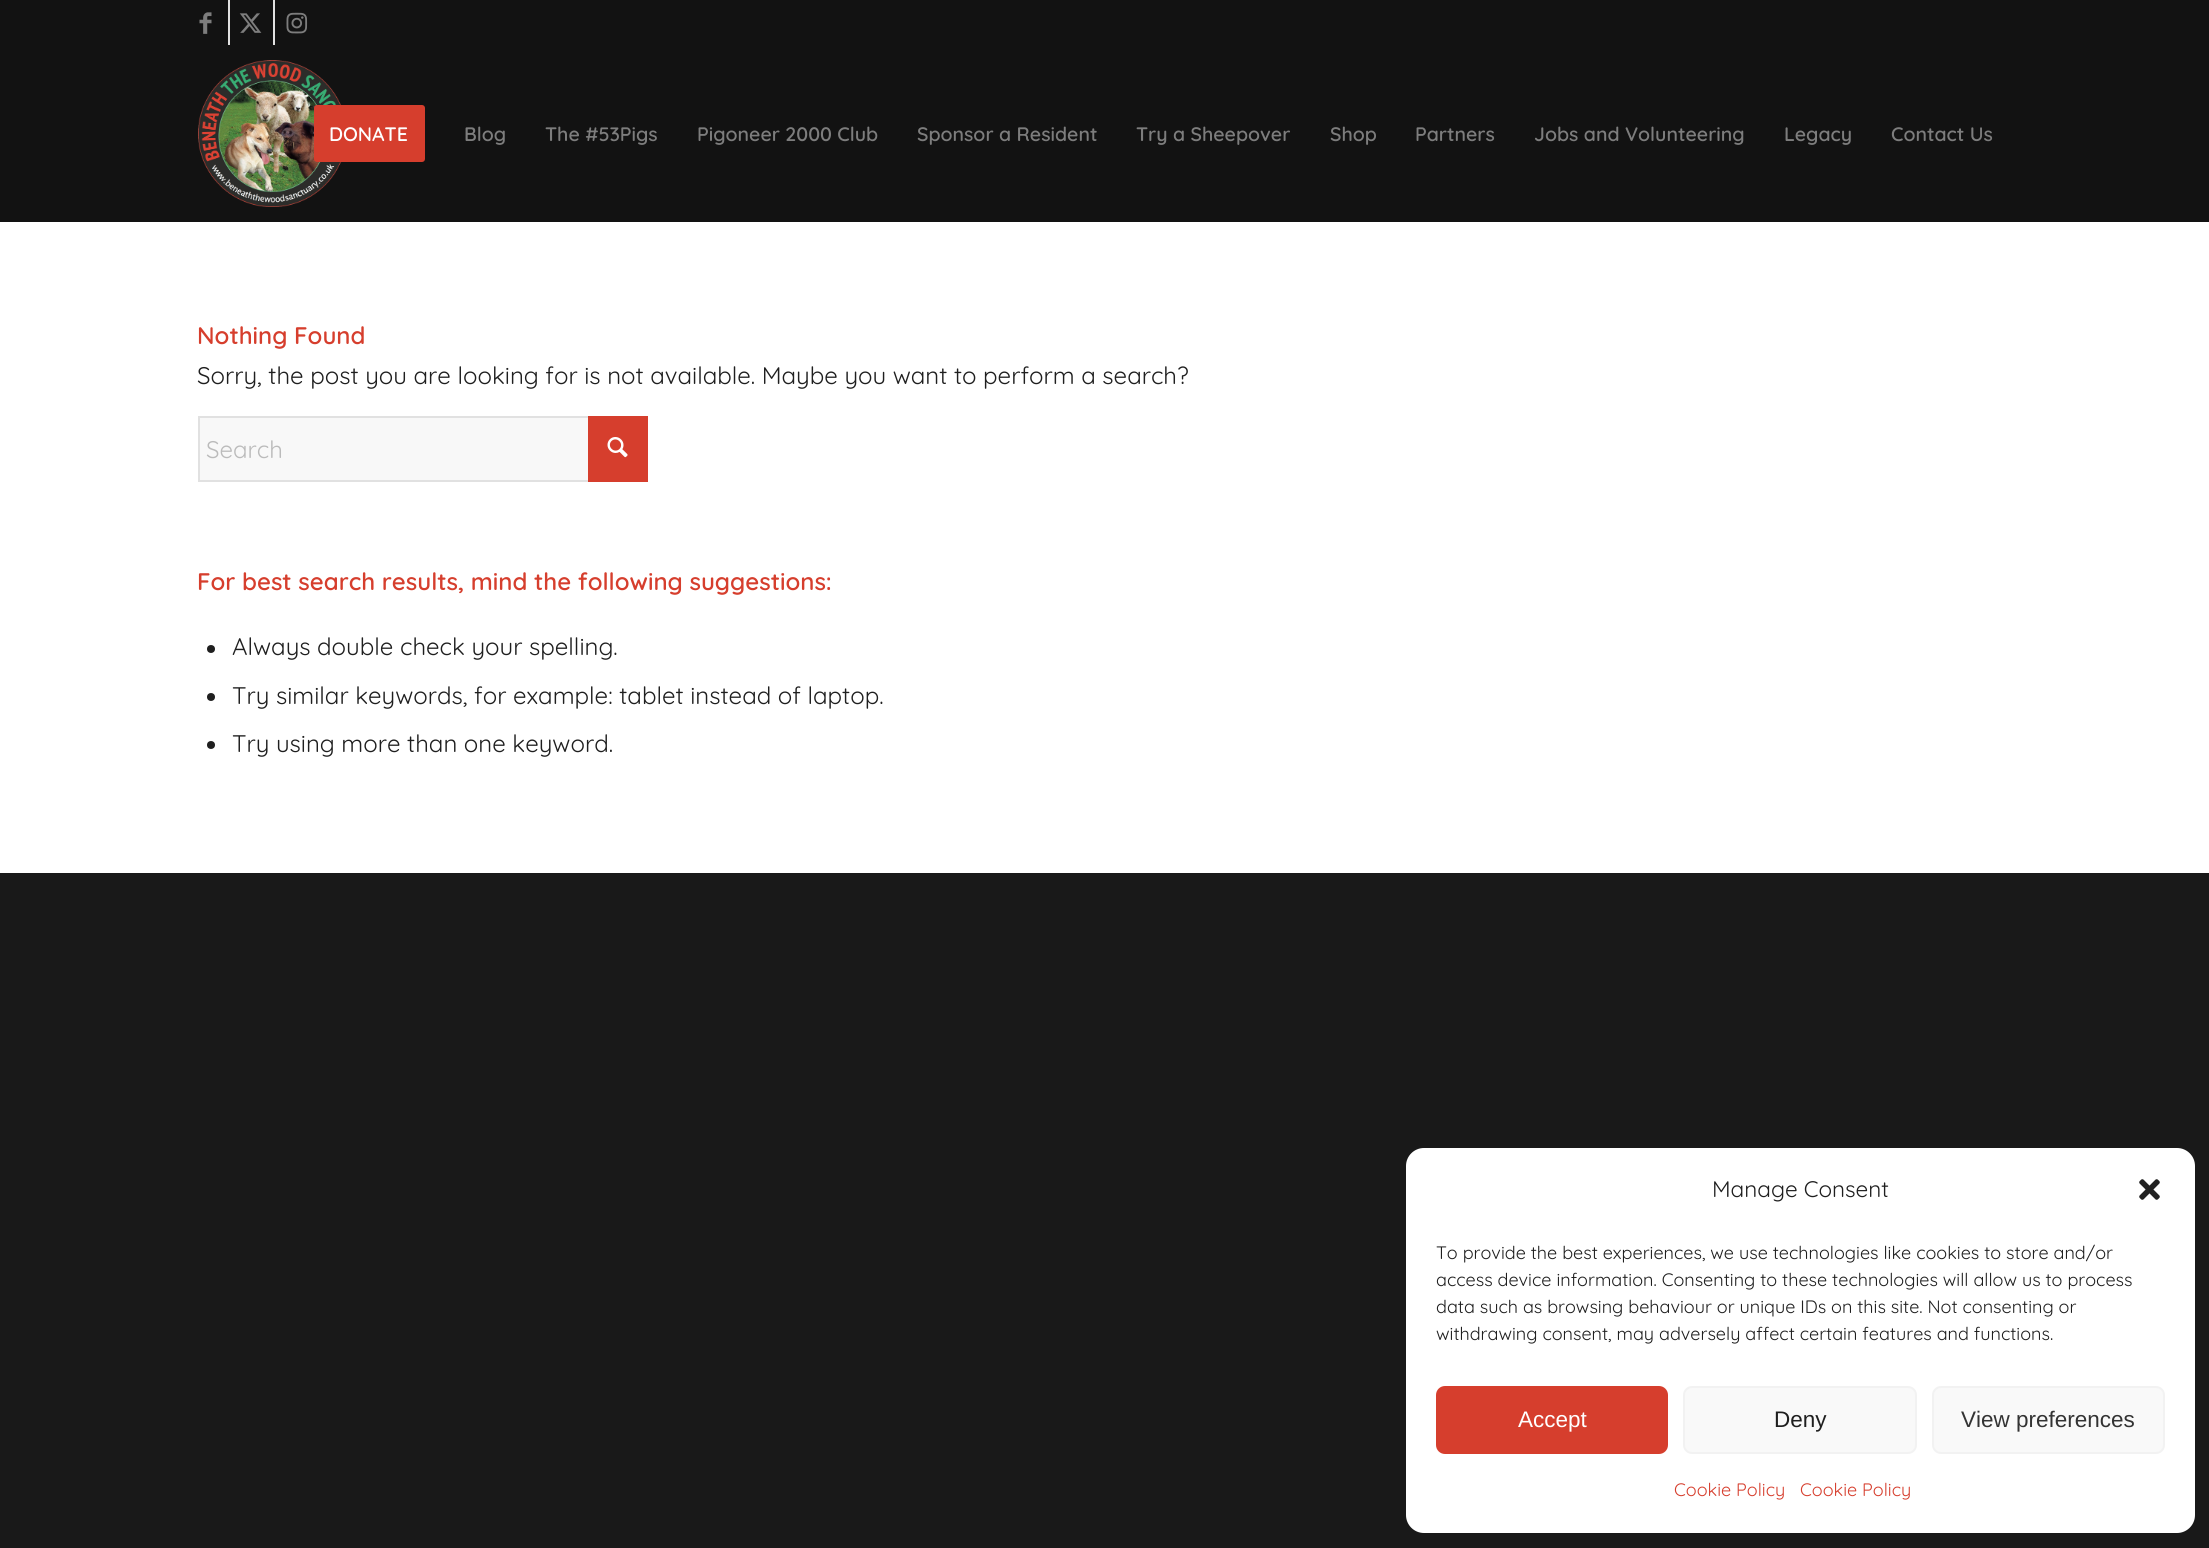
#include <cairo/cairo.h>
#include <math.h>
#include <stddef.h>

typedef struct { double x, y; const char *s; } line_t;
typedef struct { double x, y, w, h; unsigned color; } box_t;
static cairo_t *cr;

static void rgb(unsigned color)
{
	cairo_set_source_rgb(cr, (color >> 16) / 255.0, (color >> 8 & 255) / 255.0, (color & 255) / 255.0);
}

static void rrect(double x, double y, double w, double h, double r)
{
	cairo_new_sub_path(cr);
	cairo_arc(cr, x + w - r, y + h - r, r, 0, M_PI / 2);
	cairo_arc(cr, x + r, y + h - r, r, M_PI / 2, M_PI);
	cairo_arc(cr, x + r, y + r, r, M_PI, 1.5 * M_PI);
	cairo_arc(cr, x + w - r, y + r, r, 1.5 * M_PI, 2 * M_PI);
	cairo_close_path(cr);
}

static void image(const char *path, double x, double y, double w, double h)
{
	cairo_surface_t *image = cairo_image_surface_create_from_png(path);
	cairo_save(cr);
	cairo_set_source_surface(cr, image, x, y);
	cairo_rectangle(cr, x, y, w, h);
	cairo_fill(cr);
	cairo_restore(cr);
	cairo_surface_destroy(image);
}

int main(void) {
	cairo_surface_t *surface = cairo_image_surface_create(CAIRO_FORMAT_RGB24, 2209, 1548);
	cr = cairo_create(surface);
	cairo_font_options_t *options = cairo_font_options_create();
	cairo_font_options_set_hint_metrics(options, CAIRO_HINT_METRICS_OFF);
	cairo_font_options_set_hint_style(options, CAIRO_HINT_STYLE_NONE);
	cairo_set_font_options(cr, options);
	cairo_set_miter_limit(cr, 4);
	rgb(0x191919);
	cairo_paint(cr);
	{
		static const box_t items[] = {
			{0, 222, 2209, 651, 0xffffff},
			{0, 0, 2209, 222, 0x121212},
			{228, 0, 2, 45, 0xe1e1e1},
		};
		for (size_t i = 0; i < sizeof items / sizeof *items; i++) {
			rgb(items[i].color);
			cairo_rectangle(cr, items[i].x, items[i].y, items[i].w, items[i].h);
			cairo_fill(cr);
		}
	}
	image("img/1.png", 199, 12, 13, 22);
	cairo_rectangle(cr, 273, 0, 2, 45);
	cairo_fill(cr);
	image("img/2.png", 239, 13, 23, 20);
	image("img/3.png", 286, 12, 22, 22);
	image("img/4.png", 198, 60, 144, 147);
	rgb(0xd63e2d);
	rrect(315.5, 106.5, 108, 54, 1.5);
	cairo_fill_preserve(cr);
	cairo_set_line_width(cr, 3);
	cairo_stroke(cr);
	rgb(0xf8f8f8);
	cairo_rectangle(cr, 200, 418, 388, 62);
	cairo_fill(cr);
	cairo_rectangle(cr, 199, 417, 448, 64);
	rgb(0xe1e1e1);
	cairo_set_line_width(cr, 2);
	cairo_stroke(cr);
	rgb(0xd63e2d);
	cairo_rectangle(cr, 588, 416, 60, 66);
	cairo_fill(cr);
	image("img/5.png", 607, 437, 21, 21);
	rgb(0x1f1f1f);
	cairo_arc(cr, 211, 649, 4, 0, 2 * M_PI);
	cairo_fill(cr);
	cairo_arc(cr, 211, 697, 4, 0, 2 * M_PI);
	cairo_fill(cr);
	cairo_arc(cr, 211, 745, 4, 0, 2 * M_PI);
	cairo_fill(cr);
	rgb(0xffffff);
	rrect(1406, 1148, 789, 385, 18);
	cairo_fill(cr);
	image("img/6.png", 2139, 1179, 21, 21);
	rgb(0xd63e2d);
	rrect(1437, 1387, 230, 66, 8);
	cairo_fill_preserve(cr);
	cairo_stroke(cr);
	rgb(0xf9f9f9);
	rrect(1684, 1387, 232, 66, 8);
	cairo_fill_preserve(cr);
	rgb(0xf2f2f2);
	cairo_stroke(cr);
	rgb(0xf9f9f9);
	rrect(1933, 1387, 231, 66, 8);
	cairo_fill_preserve(cr);
	rgb(0xf2f2f2);
	cairo_stroke(cr);
	cairo_select_font_face(cr, "Quicksand SemiBold", CAIRO_FONT_SLANT_NORMAL, CAIRO_FONT_WEIGHT_NORMAL);
	cairo_set_font_size(cr, 19.5);
	rgb(0xffffff);
	cairo_move_to(cr, 329, 141);
	cairo_show_text(cr, "DONATE");
	rgb(0x7d7d7d);
	{
		static const line_t items[] = {
			{464, 141, "Blog"},
			{545, 141, "The #53Pigs"},
			{697, 141, "Pigoneer 2000 Club"},
			{917, 141, "Sponsor a Resident"},
			{1136, 141, "Try a Sheepover"},
			{1330, 141, "Shop"},
			{1415, 141, "Partners"},
			{1534, 141, "Jobs and Volunteering"},
			{1784, 141, "Legacy"},
			{1891, 141, "Contact Us"},
		};
		for (size_t i = 0; i < sizeof items / sizeof *items; i++) {
			cairo_move_to(cr, items[i].x, items[i].y);
			cairo_show_text(cr, items[i].s);
		}
	}
	cairo_set_font_size(cr, 24);
	rgb(0xd63e2d);
	cairo_move_to(cr, 197, 344);
	cairo_show_text(cr, "Nothing Found");
	cairo_select_font_face(cr, "Quicksand", CAIRO_FONT_SLANT_NORMAL, CAIRO_FONT_WEIGHT_NORMAL);
	rgb(0x1f1f1f);
	cairo_move_to(cr, 197, 384);
	cairo_show_text(cr, "Sorry, the post you are looking for is not available. Maybe you want to perform a search?");
	rgb(0xbbbbbb);
	cairo_move_to(cr, 206, 458);
	cairo_show_text(cr, "Search");
	cairo_select_font_face(cr, "Quicksand SemiBold", CAIRO_FONT_SLANT_NORMAL, CAIRO_FONT_WEIGHT_NORMAL);
	rgb(0xd63e2d);
	cairo_move_to(cr, 197, 590);
	cairo_show_text(cr, "For best search results, mind the following suggestions:");
	cairo_select_font_face(cr, "Quicksand", CAIRO_FONT_SLANT_NORMAL, CAIRO_FONT_WEIGHT_NORMAL);
	rgb(0x1f1f1f);
	{
		static const line_t items[] = {
			{232, 655, "Always double check your spelling."},
			{232, 704, "Try similar keywords, for example: tablet instead of laptop."},
			{232, 752, "Try using more than one keyword."},
		};
		for (size_t i = 0; i < sizeof items / sizeof *items; i++) {
			cairo_move_to(cr, items[i].x, items[i].y);
			cairo_show_text(cr, items[i].s);
		}
	}
	cairo_set_font_size(cr, 22.5);
	cairo_move_to(cr, 1712, 1197);
	cairo_show_text(cr, "Manage Consent");
	cairo_set_font_size(cr, 18);
	{
		static const line_t items[] = {
			{1436, 1259, "To provide the best experiences, we use technologies like cookies to store and/or"},
			{1436, 1286, "access device information. Consenting to these technologies will allow us to process"},
			{1436, 1313, "data such as browsing behaviour or unique IDs on this site. Not consenting or"},
			{1436, 1340, "withdrawing consent, may adversely affect certain features and functions."},
		};
		for (size_t i = 0; i < sizeof items / sizeof *items; i++) {
			cairo_move_to(cr, items[i].x, items[i].y);
			cairo_show_text(cr, items[i].s);
		}
	}
	cairo_select_font_face(cr, "Liberation Sans", CAIRO_FONT_SLANT_NORMAL, CAIRO_FONT_WEIGHT_NORMAL);
	cairo_set_font_size(cr, 22.5);
	rgb(0xffffff);
	cairo_move_to(cr, 1518, 1427);
	cairo_show_text(cr, "Accept");
	rgb(0x1f1f1f);
	cairo_move_to(cr, 1774, 1427);
	cairo_show_text(cr, "Deny");
	rgb(0x333333);
	cairo_move_to(cr, 1961, 1427);
	cairo_show_text(cr, "View preferences");
	cairo_select_font_face(cr, "Quicksand", CAIRO_FONT_SLANT_NORMAL, CAIRO_FONT_WEIGHT_NORMAL);
	cairo_set_font_size(cr, 18);
	rgb(0xd63e2d);
	cairo_move_to(cr, 1674, 1496);
	cairo_show_text(cr, "Cookie Policy");
	cairo_move_to(cr, 1800, 1496);
	cairo_show_text(cr, "Cookie Policy");
	cairo_surface_write_to_png(surface, "page.png");
	cairo_font_options_destroy(options);
	cairo_destroy(cr);
	cairo_surface_destroy(surface);
	return 0;
}
